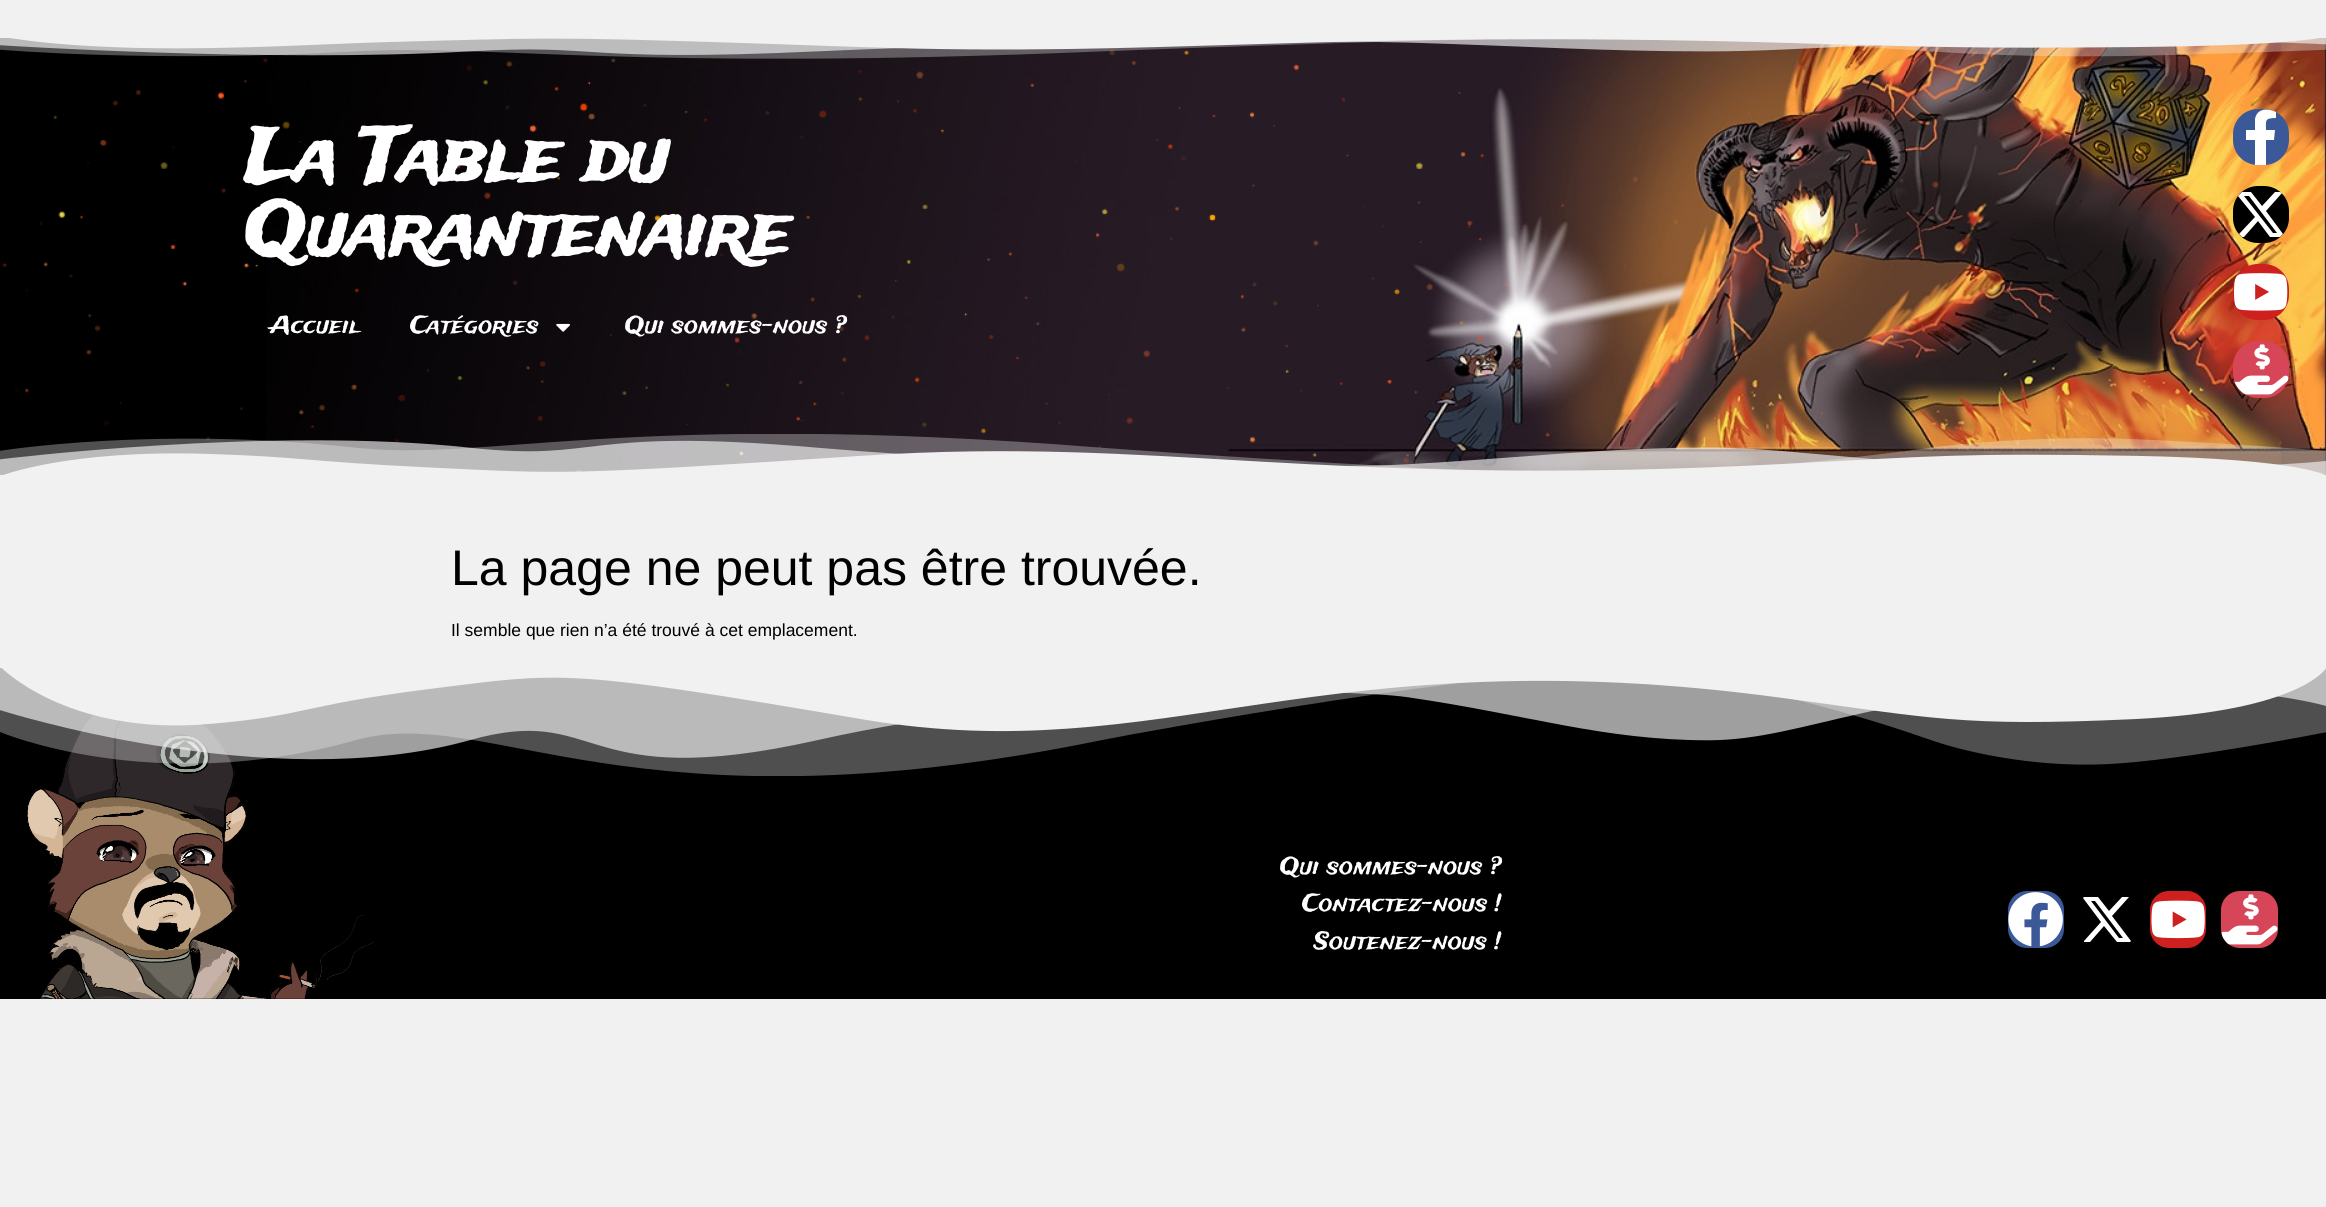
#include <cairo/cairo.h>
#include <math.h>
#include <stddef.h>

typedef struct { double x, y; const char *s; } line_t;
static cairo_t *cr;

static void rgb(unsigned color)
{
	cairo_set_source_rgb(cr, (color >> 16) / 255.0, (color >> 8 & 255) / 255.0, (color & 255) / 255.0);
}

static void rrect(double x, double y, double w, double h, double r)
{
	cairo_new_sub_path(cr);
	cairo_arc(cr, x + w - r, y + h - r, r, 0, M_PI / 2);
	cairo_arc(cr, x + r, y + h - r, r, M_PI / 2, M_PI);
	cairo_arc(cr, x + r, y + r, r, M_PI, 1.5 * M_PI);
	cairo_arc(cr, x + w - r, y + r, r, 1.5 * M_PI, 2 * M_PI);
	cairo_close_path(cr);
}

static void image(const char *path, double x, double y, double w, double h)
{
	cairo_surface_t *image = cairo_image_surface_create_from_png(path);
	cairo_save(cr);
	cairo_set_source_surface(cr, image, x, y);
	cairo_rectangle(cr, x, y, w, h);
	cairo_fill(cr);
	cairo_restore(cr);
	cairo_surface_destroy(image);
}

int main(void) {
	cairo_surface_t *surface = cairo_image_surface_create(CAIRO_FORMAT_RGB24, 2326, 1207);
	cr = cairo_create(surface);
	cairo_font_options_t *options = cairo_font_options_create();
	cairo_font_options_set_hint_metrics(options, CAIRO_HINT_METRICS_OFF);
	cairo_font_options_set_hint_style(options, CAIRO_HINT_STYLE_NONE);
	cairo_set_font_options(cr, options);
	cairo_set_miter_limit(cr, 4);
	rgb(0xf1f1f1);
	cairo_paint(cr);
	rgb(0x000000);
	cairo_rectangle(cr, 0, 38, 266, 437);
	cairo_fill(cr);
	image("img/1.png", 266, 38, 2060, 437);
	image("img/2.png", 2, 45, 2324, 421);
	image("img/4.png", 26, 47, 2276, 425);
	image("img/3.png", 0, 37, 2326, 22);
	image("img/5.png", 556, 323, 14, 9);
	rgb(0x3b5998);
	rrect(2233, 109, 56, 56, 25);
	cairo_fill(cr);
	rgb(0xffffff);
	cairo_new_path(cr);
	cairo_move_to(cr, 2274, 140);
	cairo_line_to(cr, 2266, 140);
	cairo_line_to(cr, 2266, 165);
	cairo_line_to(cr, 2255, 165);
	cairo_line_to(cr, 2255, 140);
	cairo_line_to(cr, 2246, 140);
	cairo_line_to(cr, 2246, 130);
	cairo_line_to(cr, 2255, 130);
	cairo_line_to(cr, 2255, 119);
	cairo_curve_to(cr, 2257, 108, 2268, 108, 2276, 112);
	cairo_line_to(cr, 2276, 118);
	cairo_curve_to(cr, 2264, 118, 2266, 121, 2266, 130);
	cairo_line_to(cr, 2275, 130);
	cairo_close_path(cr);
	cairo_fill(cr);
	rgb(0x000000);
	rrect(2233, 186, 56, 57, 25);
	cairo_fill(cr);
	rgb(0xffffff);
	cairo_set_fill_rule(cr, CAIRO_FILL_RULE_EVEN_ODD);
	cairo_new_path(cr);
	cairo_move_to(cr, 2275, 192);
	cairo_line_to(cr, 2280, 192);
	cairo_line_to(cr, 2282, 193);
	cairo_line_to(cr, 2266, 211);
	cairo_line_to(cr, 2283, 234);
	cairo_line_to(cr, 2280, 237);
	cairo_line_to(cr, 2270, 237);
	cairo_line_to(cr, 2258, 221);
	cairo_line_to(cr, 2244, 237);
	cairo_line_to(cr, 2242, 237);
	cairo_line_to(cr, 2239, 234);
	cairo_line_to(cr, 2255, 217);
	cairo_line_to(cr, 2238, 196);
	cairo_line_to(cr, 2242, 192);
	cairo_line_to(cr, 2251, 192);
	cairo_line_to(cr, 2262, 206);
	cairo_close_path(cr);
	cairo_move_to(cr, 2273, 233);
	cairo_line_to(cr, 2244, 196);
	cairo_line_to(cr, 2249, 196);
	cairo_line_to(cr, 2277, 233);
	cairo_close_path(cr);
	cairo_fill(cr);
	rgb(0xcd201f);
	rrect(2233, 264, 56, 56, 25);
	cairo_fill(cr);
	image("img/6.png", 2233, 273, 55, 38);
	rgb(0xd64658);
	rrect(2233, 341, 56, 57, 25);
	cairo_fill(cr);
	image("img/7.png", 2234, 344, 55, 51);
	image("img/8.png", 0, 434, 2326, 41);
	rgb(0x000000);
	cairo_rectangle(cr, 0, 668, 2326, 331);
	cairo_fill(cr);
	image("img/9.png", 27, 714, 347, 285);
	image("img/10.png", 0, 668, 2326, 108);
	rgb(0x3b5998);
	rrect(2008, 891, 56, 57, 19);
	cairo_fill(cr);
	image("img/11.png", 2008, 892, 55, 55);
	rgb(0xffffff);
	cairo_new_path(cr);
	cairo_move_to(cr, 2122, 897);
	cairo_line_to(cr, 2129, 897);
	cairo_line_to(cr, 2112, 916);
	cairo_line_to(cr, 2131, 941);
	cairo_line_to(cr, 2130, 942);
	cairo_line_to(cr, 2117, 942);
	cairo_line_to(cr, 2104, 926);
	cairo_line_to(cr, 2090, 942);
	cairo_line_to(cr, 2084, 942);
	cairo_line_to(cr, 2084, 941);
	cairo_line_to(cr, 2101, 922);
	cairo_line_to(cr, 2083, 898);
	cairo_line_to(cr, 2084, 897);
	cairo_line_to(cr, 2098, 897);
	cairo_line_to(cr, 2109, 911);
	cairo_close_path(cr);
	cairo_move_to(cr, 2119, 938);
	cairo_line_to(cr, 2091, 901);
	cairo_line_to(cr, 2095, 901);
	cairo_line_to(cr, 2123, 938);
	cairo_close_path(cr);
	cairo_fill(cr);
	rgb(0xcd201f);
	rrect(2150, 891, 56, 57, 19);
	cairo_fill(cr);
	image("img/12.png", 2151, 900, 54, 39);
	rgb(0xd64658);
	rrect(2221, 891, 57, 57, 19);
	cairo_fill(cr);
	image("img/13.png", 2221, 894, 57, 51);
	cairo_select_font_face(cr, "Trade Winds", CAIRO_FONT_SLANT_NORMAL, CAIRO_FONT_WEIGHT_BOLD);
	cairo_set_font_size(cr, 73.75);
	rgb(0xffffff);
	cairo_move_to(cr, 245, 181);
	cairo_show_text(cr, "La Table du");
	cairo_move_to(cr, 245, 255);
	cairo_show_text(cr, "Quarantenaire");
	cairo_select_font_face(cr, "Trade Winds", CAIRO_FONT_SLANT_NORMAL, CAIRO_FONT_WEIGHT_NORMAL);
	cairo_set_font_size(cr, 23.75);
	{
		static const line_t items[] = {
			{270, 333, "Accueil"},
			{410, 333, "Catégories"},
			{625, 333, "Qui sommes-nous ?"},
		};
		for (size_t i = 0; i < sizeof items / sizeof *items; i++) {
			cairo_move_to(cr, items[i].x, items[i].y);
			cairo_show_text(cr, items[i].s);
		}
	}
	cairo_select_font_face(cr, "Liberation Sans", CAIRO_FONT_SLANT_NORMAL, CAIRO_FONT_WEIGHT_NORMAL);
	cairo_set_font_size(cr, 50);
	rgb(0x000000);
	cairo_move_to(cr, 451, 585);
	cairo_show_text(cr, "La page ne peut pas être trouvée.");
	cairo_set_font_size(cr, 17.5);
	cairo_move_to(cr, 451, 636);
	cairo_show_text(cr, "Il semble que rien n’a été trouvé à cet emplacement.");
	cairo_select_font_face(cr, "Trade Winds", CAIRO_FONT_SLANT_NORMAL, CAIRO_FONT_WEIGHT_NORMAL);
	cairo_set_font_size(cr, 23.75);
	rgb(0xffffff);
	{
		static const line_t items[] = {
			{1280, 874, "Qui sommes-nous ?"},
			{1302, 911, "Contactez-nous !"},
			{1314, 949, "Soutenez-nous !"},
		};
		for (size_t i = 0; i < sizeof items / sizeof *items; i++) {
			cairo_move_to(cr, items[i].x, items[i].y);
			cairo_show_text(cr, items[i].s);
		}
	}
	cairo_surface_write_to_png(surface, "page.png");
	cairo_font_options_destroy(options);
	cairo_destroy(cr);
	cairo_surface_destroy(surface);
	return 0;
}
